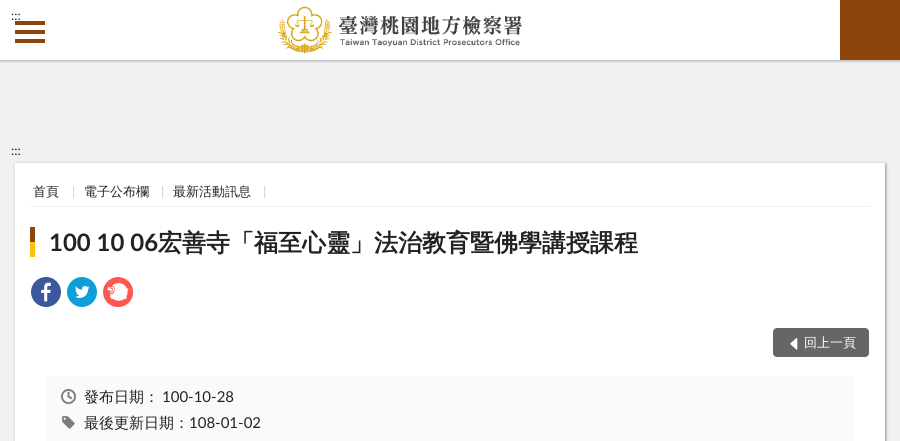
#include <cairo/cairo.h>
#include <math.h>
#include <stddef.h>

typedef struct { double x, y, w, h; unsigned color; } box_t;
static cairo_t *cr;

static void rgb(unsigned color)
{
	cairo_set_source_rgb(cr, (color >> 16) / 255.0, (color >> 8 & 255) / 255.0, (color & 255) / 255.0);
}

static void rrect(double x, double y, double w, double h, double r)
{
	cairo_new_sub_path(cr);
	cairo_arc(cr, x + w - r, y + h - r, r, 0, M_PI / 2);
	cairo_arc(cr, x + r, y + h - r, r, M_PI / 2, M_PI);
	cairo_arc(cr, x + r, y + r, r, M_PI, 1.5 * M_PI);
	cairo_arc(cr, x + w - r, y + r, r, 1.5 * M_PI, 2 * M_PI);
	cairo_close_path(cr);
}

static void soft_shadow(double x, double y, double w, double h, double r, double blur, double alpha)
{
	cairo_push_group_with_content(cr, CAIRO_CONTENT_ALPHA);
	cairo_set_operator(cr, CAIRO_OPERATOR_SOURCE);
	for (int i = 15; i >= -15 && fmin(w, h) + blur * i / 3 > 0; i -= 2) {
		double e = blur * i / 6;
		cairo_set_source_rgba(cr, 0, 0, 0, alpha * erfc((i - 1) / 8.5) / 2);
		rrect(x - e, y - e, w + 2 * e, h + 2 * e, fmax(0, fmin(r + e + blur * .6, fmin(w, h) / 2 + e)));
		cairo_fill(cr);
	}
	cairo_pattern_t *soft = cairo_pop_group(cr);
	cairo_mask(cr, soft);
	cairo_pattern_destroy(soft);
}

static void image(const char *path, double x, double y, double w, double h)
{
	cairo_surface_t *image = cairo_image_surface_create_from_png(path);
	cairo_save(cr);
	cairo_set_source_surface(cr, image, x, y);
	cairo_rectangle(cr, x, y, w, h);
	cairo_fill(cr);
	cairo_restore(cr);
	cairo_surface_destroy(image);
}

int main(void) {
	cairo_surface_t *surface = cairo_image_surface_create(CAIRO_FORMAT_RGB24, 900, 441);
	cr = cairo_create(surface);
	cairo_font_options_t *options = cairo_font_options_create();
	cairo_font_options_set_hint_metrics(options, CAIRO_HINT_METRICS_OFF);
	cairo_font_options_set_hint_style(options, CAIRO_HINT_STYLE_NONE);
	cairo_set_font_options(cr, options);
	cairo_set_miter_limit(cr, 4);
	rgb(0xffffff);
	cairo_paint(cr);
	rgb(0xf1f1f1);
	cairo_rectangle(cr, 0, 60, 900, 381);
	cairo_fill(cr);
	cairo_save(cr);
	cairo_rectangle(cr, 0, 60, 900, 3);
	cairo_clip(cr);
	rgb(0x000000);
	soft_shadow(0, 1, 900, 60, 0, 1.5, 0.3);
	cairo_restore(cr);
	image("img/1.png", 277, 6, 245, 48);
	{
		static const box_t items[] = {
			{840, 0, 60, 60, 0x8d450c},
			{15, 21, 30, 4, 0x8d450c},
			{15, 30, 30, 4, 0x8d450c},
			{15, 39, 30, 4, 0x8d450c},
		};
		for (size_t i = 0; i < sizeof items / sizeof *items; i++) {
			rgb(items[i].color);
			cairo_rectangle(cr, items[i].x, items[i].y, items[i].w, items[i].h);
			cairo_fill(cr);
		}
	}
	rgb(0x000000);
	soft_shadow(16, 164, 870, 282, 0, 1.5, 0.4);
	{
		static const box_t items[] = {
			{15, 163, 870, 278, 0xffffff},
			{30, 206, 840, 1, 0xeeeeee},
			{30, 227, 5, 15, 0x8d450c},
			{30, 242, 5, 15, 0xfcc211},
		};
		for (size_t i = 0; i < sizeof items / sizeof *items; i++) {
			rgb(items[i].color);
			cairo_rectangle(cr, items[i].x, items[i].y, items[i].w, items[i].h);
			cairo_fill(cr);
		}
	}
	image("img/2.png", 31, 277, 30, 30);
	image("img/3.png", 67, 277, 30, 30);
	image("img/4.png", 103, 277, 30, 30);
	rgb(0x666666);
	rrect(773, 328, 96, 29, 4);
	cairo_fill(cr);
	image("img/5.png", 790, 338, 8, 12);
	rgb(0xfafafa);
	rrect(45, 376, 810, 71, 6);
	cairo_fill(cr);
	image("img/6.png", 61, 389, 15, 15);
	image("img/7.png", 62, 416, 13, 13);
	cairo_select_font_face(cr, "Lato", CAIRO_FONT_SLANT_NORMAL, CAIRO_FONT_WEIGHT_NORMAL);
	cairo_set_font_size(cr, 13);
	rgb(0x222222);
	cairo_move_to(cr, 11, 20);
	cairo_show_text(cr, ":::");
	cairo_move_to(cr, 11, 155);
	cairo_show_text(cr, ":::");
	cairo_select_font_face(cr, "WenQuanYi Zen Hei Medium", CAIRO_FONT_SLANT_NORMAL, CAIRO_FONT_WEIGHT_NORMAL);
	cairo_move_to(cr, 33, 196);
	cairo_show_text(cr, "首頁");
	cairo_select_font_face(cr, "Lato", CAIRO_FONT_SLANT_NORMAL, CAIRO_FONT_WEIGHT_NORMAL);
	rgb(0xcccccc);
	cairo_move_to(cr, 72, 196);
	cairo_show_text(cr, "|");
	cairo_select_font_face(cr, "WenQuanYi Zen Hei Medium", CAIRO_FONT_SLANT_NORMAL, CAIRO_FONT_WEIGHT_NORMAL);
	rgb(0x222222);
	cairo_move_to(cr, 84, 196);
	cairo_show_text(cr, "電子公布欄");
	cairo_select_font_face(cr, "Lato", CAIRO_FONT_SLANT_NORMAL, CAIRO_FONT_WEIGHT_NORMAL);
	rgb(0xcccccc);
	cairo_move_to(cr, 161, 196);
	cairo_show_text(cr, "|");
	cairo_select_font_face(cr, "WenQuanYi Zen Hei Medium", CAIRO_FONT_SLANT_NORMAL, CAIRO_FONT_WEIGHT_NORMAL);
	rgb(0x222222);
	cairo_move_to(cr, 173, 196);
	cairo_show_text(cr, "最新活動訊息");
	cairo_select_font_face(cr, "Lato", CAIRO_FONT_SLANT_NORMAL, CAIRO_FONT_WEIGHT_NORMAL);
	rgb(0xcccccc);
	cairo_move_to(cr, 263, 196);
	cairo_show_text(cr, "|");
	cairo_select_font_face(cr, "Lato", CAIRO_FONT_SLANT_NORMAL, CAIRO_FONT_WEIGHT_BOLD);
	cairo_set_font_size(cr, 24);
	rgb(0x222222);
	cairo_move_to(cr, 49, 251);
	cairo_show_text(cr, "100 10 06");
	cairo_select_font_face(cr, "WenQuanYi Zen Hei", CAIRO_FONT_SLANT_NORMAL, CAIRO_FONT_WEIGHT_BOLD);
	cairo_move_to(cr, 158, 251);
	cairo_show_text(cr, "宏善寺「福至心靈」法治教育暨佛學講授課程");
	cairo_select_font_face(cr, "WenQuanYi Zen Hei Medium", CAIRO_FONT_SLANT_NORMAL, CAIRO_FONT_WEIGHT_NORMAL);
	cairo_set_font_size(cr, 13);
	rgb(0xffffff);
	cairo_move_to(cr, 804, 347);
	cairo_show_text(cr, "回上一頁");
	cairo_set_font_size(cr, 15);
	rgb(0x222222);
	cairo_move_to(cr, 84, 402);
	cairo_show_text(cr, "發布日期：");
	cairo_select_font_face(cr, "Lato", CAIRO_FONT_SLANT_NORMAL, CAIRO_FONT_WEIGHT_NORMAL);
	cairo_move_to(cr, 162, 402);
	cairo_show_text(cr, "100-10-28");
	cairo_select_font_face(cr, "WenQuanYi Zen Hei Medium", CAIRO_FONT_SLANT_NORMAL, CAIRO_FONT_WEIGHT_NORMAL);
	cairo_move_to(cr, 84, 428);
	cairo_show_text(cr, "最後更新日期：");
	cairo_select_font_face(cr, "Lato", CAIRO_FONT_SLANT_NORMAL, CAIRO_FONT_WEIGHT_NORMAL);
	cairo_move_to(cr, 189, 428);
	cairo_show_text(cr, "108-01-02");
	cairo_surface_write_to_png(surface, "page.png");
	cairo_font_options_destroy(options);
	cairo_destroy(cr);
	cairo_surface_destroy(surface);
	return 0;
}
